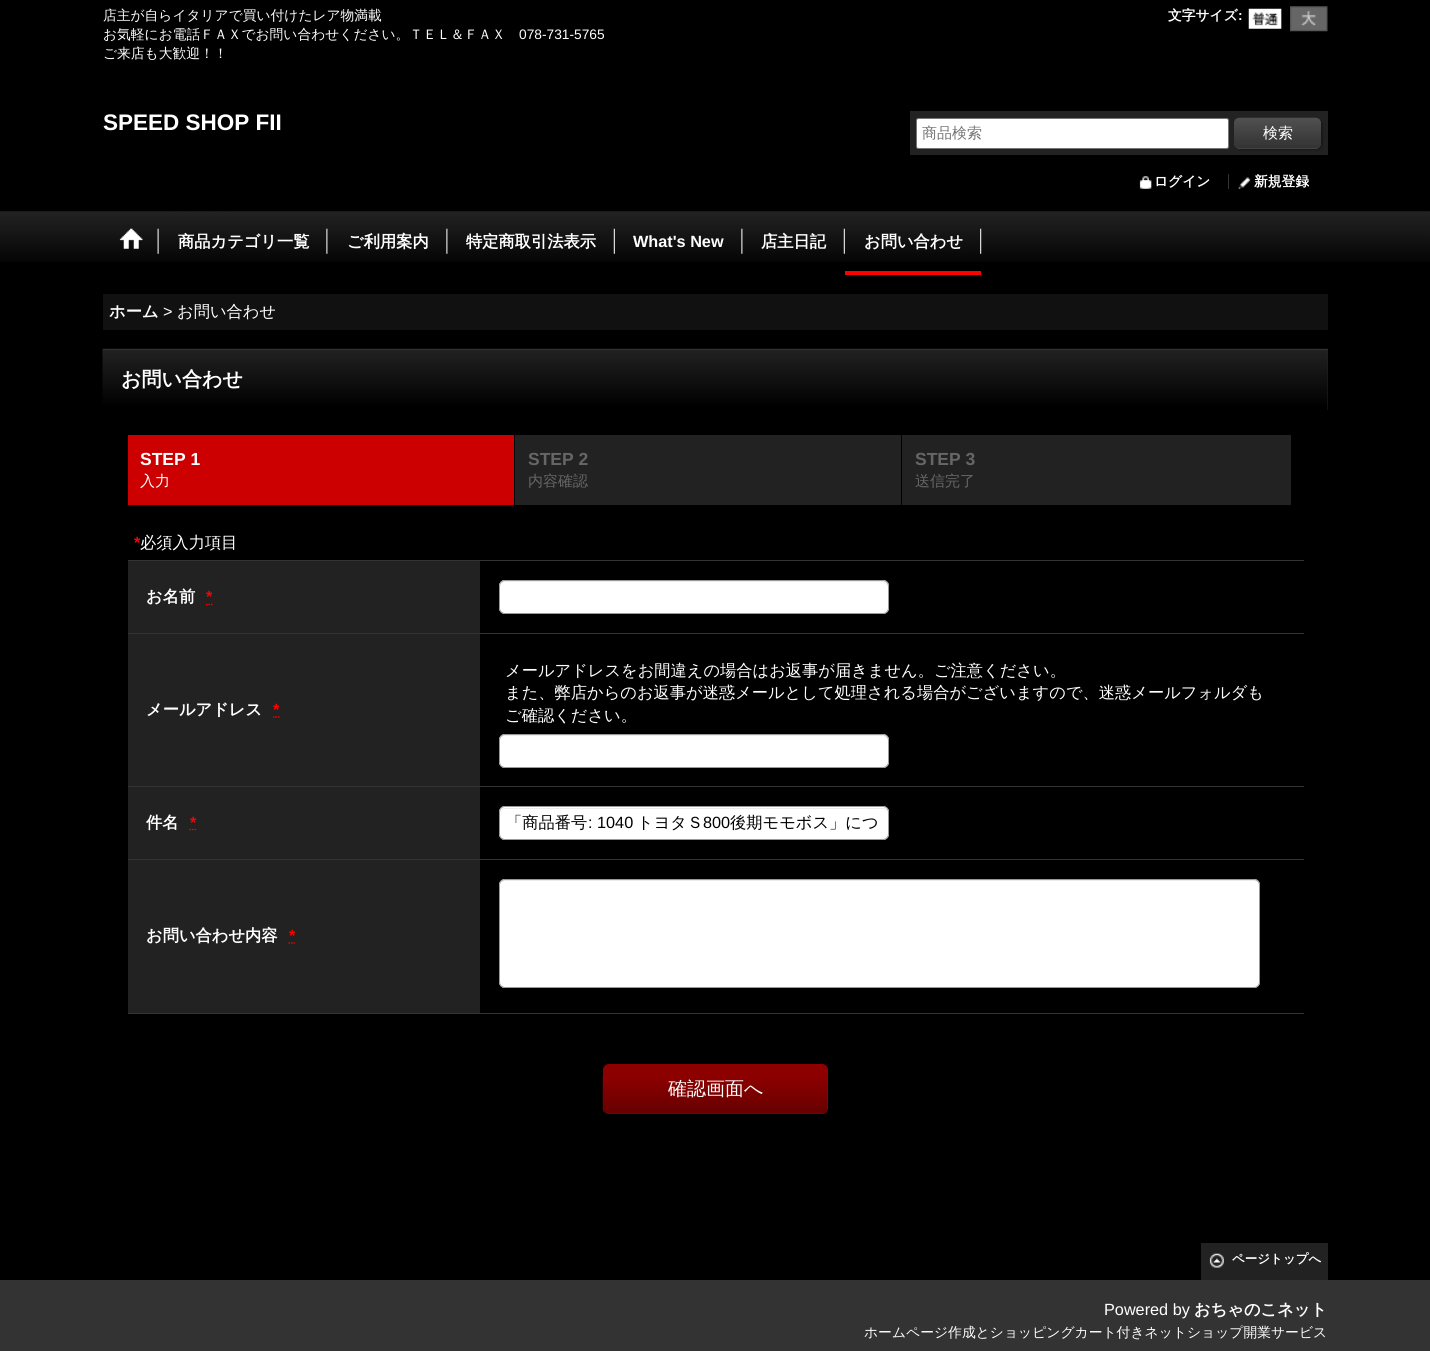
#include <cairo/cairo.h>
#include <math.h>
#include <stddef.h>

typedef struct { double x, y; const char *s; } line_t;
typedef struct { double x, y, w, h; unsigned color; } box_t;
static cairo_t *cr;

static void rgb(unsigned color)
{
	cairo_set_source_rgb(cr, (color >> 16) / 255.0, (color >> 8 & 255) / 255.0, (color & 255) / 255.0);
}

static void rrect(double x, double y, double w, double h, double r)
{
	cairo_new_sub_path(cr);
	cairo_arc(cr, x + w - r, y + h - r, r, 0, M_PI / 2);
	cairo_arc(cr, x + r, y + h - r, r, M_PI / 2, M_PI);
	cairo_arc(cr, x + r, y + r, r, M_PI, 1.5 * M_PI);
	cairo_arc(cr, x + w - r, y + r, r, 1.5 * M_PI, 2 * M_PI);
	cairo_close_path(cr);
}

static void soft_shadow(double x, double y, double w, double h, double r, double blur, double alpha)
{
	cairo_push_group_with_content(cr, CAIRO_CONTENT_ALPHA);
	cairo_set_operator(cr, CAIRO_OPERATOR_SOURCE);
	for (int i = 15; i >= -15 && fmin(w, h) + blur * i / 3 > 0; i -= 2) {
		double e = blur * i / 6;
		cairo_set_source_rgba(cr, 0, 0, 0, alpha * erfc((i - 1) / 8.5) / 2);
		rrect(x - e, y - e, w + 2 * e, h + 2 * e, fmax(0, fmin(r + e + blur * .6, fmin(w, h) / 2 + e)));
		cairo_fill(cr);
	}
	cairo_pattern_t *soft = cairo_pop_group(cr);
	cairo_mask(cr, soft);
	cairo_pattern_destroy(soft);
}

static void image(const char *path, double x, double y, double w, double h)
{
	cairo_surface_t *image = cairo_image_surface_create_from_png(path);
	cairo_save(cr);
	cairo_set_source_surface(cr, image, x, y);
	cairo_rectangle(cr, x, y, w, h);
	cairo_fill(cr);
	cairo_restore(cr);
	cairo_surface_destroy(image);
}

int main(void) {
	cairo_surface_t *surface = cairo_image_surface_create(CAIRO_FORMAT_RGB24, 1430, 1351);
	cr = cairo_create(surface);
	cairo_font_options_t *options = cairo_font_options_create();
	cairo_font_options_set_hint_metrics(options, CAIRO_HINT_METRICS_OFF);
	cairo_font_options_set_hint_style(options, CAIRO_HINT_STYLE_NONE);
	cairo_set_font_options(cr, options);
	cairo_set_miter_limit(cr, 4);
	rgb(0x000000);
	cairo_paint(cr);
	image("img/1.png", 1248, 8, 34, 21);
	image("img/2.png", 1290, 6, 38, 26);
	rgb(0x222222);
	cairo_rectangle(cr, 910, 111, 418, 44);
	cairo_fill(cr);
	rgb(0xffffff);
	rrect(916.5, 118.5, 312, 30, 2);
	cairo_fill_preserve(cr);
	rgb(0x767676);
	cairo_set_line_width(cr, 1);
	cairo_stroke(cr);
	rgb(0x000000);
	soft_shadow(1235, 119, 88, 31, 6, 1, 0.3);
	rgb(0x555555);
	rrect(1234, 118, 87, 31, 6);
	cairo_fill(cr);
	image("img/3.png", 1234, 117, 87, 32);
	image("img/4.png", 1139, 176, 13, 13);
	rgb(0x333333);
	cairo_rectangle(cr, 1228, 174, 1, 15);
	cairo_fill(cr);
	image("img/5.png", 1238, 177, 13, 12);
	image("img/6.png", 0, 211, 1430, 51);
	image("img/7.png", 157, 228, 2, 26);
	image("img/8.png", 119, 228, 24, 21);
	image("img/9.png", 326, 228, 2, 26);
	image("img/9.png", 446, 228, 2, 26);
	image("img/10.png", 613, 228, 2, 26);
	image("img/9.png", 741, 228, 2, 26);
	image("img/10.png", 843, 228, 2, 26);
	rgb(0xff0000);
	cairo_rectangle(cr, 845, 271, 136, 4);
	cairo_fill(cr);
	image("img/11.png", 980, 228, 2, 26);
	rgb(0x111111);
	cairo_rectangle(cr, 103, 294, 1225, 36);
	cairo_fill(cr);
	rgb(0x222222);
	cairo_rectangle(cr, 1327, 350, 1, 60);
	cairo_fill(cr);
	image("img/12.png", 102, 348, 1226, 62);
	{
		static const box_t items[] = {
			{103, 349, 1225, 1, 0x333333},
			{128, 435, 386, 70, 0xcc0000},
			{515, 435, 776, 70, 0x222222},
			{901, 435, 1, 71, 0x000000},
			{128, 560, 1176, 1, 0x333333},
			{128, 633, 1176, 1, 0x333333},
		};
		for (size_t i = 0; i < sizeof items / sizeof *items; i++) {
			rgb(items[i].color);
			cairo_rectangle(cr, items[i].x, items[i].y, items[i].w, items[i].h);
			cairo_fill(cr);
		}
	}
	rgb(0xffffff);
	rrect(499, 580, 390, 34, 6);
	cairo_fill(cr);
	rgb(0xececec);
	cairo_new_path(cr);
	cairo_move_to(cr, 505, 582);
	cairo_line_to(cr, 882, 582);
	cairo_curve_to(cr, 885, 582, 888, 585, 888, 588);
	cairo_line_to(cr, 888, 586);
	cairo_curve_to(cr, 888, 583, 886, 581, 883, 581);
	cairo_line_to(cr, 505, 581);
	cairo_curve_to(cr, 502, 581, 500, 583, 500, 586);
	cairo_line_to(cr, 500, 588);
	cairo_curve_to(cr, 500, 585, 502, 582, 505, 582);
	cairo_close_path(cr);
	cairo_fill(cr);
	rrect(499.5, 580.5, 389, 33, 5.5);
	rgb(0x999999);
	cairo_stroke(cr);
	rgb(0x222222);
	cairo_rectangle(cr, 128, 561, 352, 72);
	cairo_fill(cr);
	cairo_new_path(cr);
	cairo_move_to(cr, 206, 604.5);
	cairo_line_to(cr, 207.5, 604.5);
	cairo_move_to(cr, 208.5, 604.5);
	cairo_line_to(cr, 210, 604.5);
	cairo_move_to(cr, 211, 604.5);
	cairo_line_to(cr, 212.5, 604.5);
	rgb(0xff0000);
	cairo_set_line_width(cr, 1.2);
	cairo_stroke(cr);
	rgb(0x222222);
	cairo_rectangle(cr, 128, 634, 352, 225);
	cairo_fill(cr);
	cairo_new_path(cr);
	cairo_move_to(cr, 273, 717);
	cairo_line_to(cr, 274.5, 717);
	cairo_move_to(cr, 275.5, 717);
	cairo_line_to(cr, 277, 717);
	cairo_move_to(cr, 278, 717);
	cairo_line_to(cr, 279.5, 717);
	rgb(0xff0000);
	cairo_stroke(cr);
	rgb(0x333333);
	cairo_rectangle(cr, 128, 786, 1176, 1);
	cairo_fill(cr);
	rgb(0xffffff);
	rrect(499, 734, 390, 34, 6);
	cairo_fill(cr);
	rgb(0xececec);
	cairo_new_path(cr);
	cairo_move_to(cr, 505, 736);
	cairo_line_to(cr, 882, 736);
	cairo_curve_to(cr, 885, 736, 888, 738, 888, 741);
	cairo_line_to(cr, 888, 740);
	cairo_curve_to(cr, 888, 737, 886, 735, 883, 735);
	cairo_line_to(cr, 505, 735);
	cairo_curve_to(cr, 502, 735, 500, 737, 500, 740);
	cairo_line_to(cr, 500, 741);
	cairo_curve_to(cr, 500, 738, 502, 736, 505, 736);
	cairo_close_path(cr);
	cairo_fill(cr);
	rrect(499.5, 734.5, 389, 33, 5.5);
	rgb(0x999999);
	cairo_set_line_width(cr, 1);
	cairo_stroke(cr);
	cairo_new_path(cr);
	cairo_move_to(cr, 189.5, 829.5);
	cairo_line_to(cr, 191, 829.5);
	cairo_move_to(cr, 192, 829.5);
	cairo_line_to(cr, 193.5, 829.5);
	cairo_move_to(cr, 194.5, 829.5);
	cairo_line_to(cr, 196, 829.5);
	rgb(0xff0000);
	cairo_set_line_width(cr, 1.2);
	cairo_stroke(cr);
	rgb(0x333333);
	cairo_rectangle(cr, 128, 859, 1176, 1);
	cairo_fill(cr);
	rgb(0xffffff);
	rrect(499, 806, 390, 34, 6);
	cairo_fill(cr);
	rgb(0xececec);
	cairo_new_path(cr);
	cairo_move_to(cr, 505, 809);
	cairo_line_to(cr, 882, 809);
	cairo_curve_to(cr, 885, 809, 888, 811, 888, 814);
	cairo_line_to(cr, 888, 813);
	cairo_curve_to(cr, 888, 810, 886, 808, 883, 808);
	cairo_line_to(cr, 505, 808);
	cairo_curve_to(cr, 502, 808, 500, 810, 500, 813);
	cairo_line_to(cr, 500, 814);
	cairo_curve_to(cr, 500, 811, 502, 809, 505, 809);
	cairo_close_path(cr);
	cairo_fill(cr);
	rrect(499.5, 806.5, 389, 33, 5.5);
	rgb(0x999999);
	cairo_set_line_width(cr, 1);
	cairo_stroke(cr);
	rgb(0x333333);
	cairo_rectangle(cr, 128, 1013, 1176, 1);
	cairo_fill(cr);
	rgb(0xffffff);
	rrect(499, 879, 761, 109, 6);
	cairo_fill(cr);
	rgb(0xececec);
	cairo_new_path(cr);
	cairo_move_to(cr, 505, 881);
	cairo_line_to(cr, 1254, 881);
	cairo_curve_to(cr, 1257, 881, 1259, 883, 1259, 886);
	cairo_line_to(cr, 1259, 885);
	cairo_curve_to(cr, 1259, 882, 1257, 880, 1254, 880);
	cairo_line_to(cr, 505, 880);
	cairo_curve_to(cr, 502, 880, 500, 882, 500, 885);
	cairo_line_to(cr, 500, 886);
	cairo_curve_to(cr, 500, 883, 502, 881, 505, 881);
	cairo_close_path(cr);
	cairo_fill(cr);
	rrect(499.5, 879.5, 760, 108, 5.5);
	rgb(0x999999);
	cairo_stroke(cr);
	rgb(0x222222);
	cairo_rectangle(cr, 128, 860, 352, 153);
	cairo_fill(cr);
	cairo_new_path(cr);
	cairo_move_to(cr, 288.5, 943);
	cairo_line_to(cr, 290, 943);
	cairo_move_to(cr, 291, 943);
	cairo_line_to(cr, 292.5, 943);
	cairo_move_to(cr, 293.5, 943);
	cairo_line_to(cr, 295, 943);
	rgb(0xff0000);
	cairo_set_line_width(cr, 1.2);
	cairo_stroke(cr);
	rgb(0x8c0000);
	rrect(603, 1064, 225, 50, 6);
	cairo_fill(cr);
	image("img/13.png", 602, 1076, 226, 38);
	rgb(0x222222);
	cairo_rectangle(cr, 1201, 1243, 127, 37);
	cairo_fill(cr);
	image("img/14.png", 1209, 1253, 15, 15);
	rgb(0x333333);
	cairo_rectangle(cr, 0, 1280, 1430, 71);
	cairo_fill(cr);
	cairo_select_font_face(cr, "WenQuanYi Zen Hei Medium", CAIRO_FONT_SLANT_NORMAL, CAIRO_FONT_WEIGHT_NORMAL);
	cairo_set_font_size(cr, 13.75);
	rgb(0xffffff);
	cairo_move_to(cr, 103, 20);
	cairo_show_text(cr, "店主が自らイタリアで買い付けたレア物満載");
	cairo_move_to(cr, 103, 39);
	cairo_show_text(cr, "お気軽にお電話ＦＡＸでお問い合わせください。ＴＥＬ＆ＦＡＸ");
	cairo_select_font_face(cr, "Liberation Sans", CAIRO_FONT_SLANT_NORMAL, CAIRO_FONT_WEIGHT_NORMAL);
	cairo_move_to(cr, 519, 39);
	cairo_show_text(cr, "078-731-5765");
	cairo_select_font_face(cr, "WenQuanYi Zen Hei Medium", CAIRO_FONT_SLANT_NORMAL, CAIRO_FONT_WEIGHT_NORMAL);
	cairo_move_to(cr, 103, 58);
	cairo_show_text(cr, "ご来店も大歓迎！！");
	cairo_select_font_face(cr, "WenQuanYi Zen Hei", CAIRO_FONT_SLANT_NORMAL, CAIRO_FONT_WEIGHT_BOLD);
	cairo_move_to(cr, 1168, 20);
	cairo_show_text(cr, "文字サイズ");
	cairo_select_font_face(cr, "Liberation Sans", CAIRO_FONT_SLANT_NORMAL, CAIRO_FONT_WEIGHT_BOLD);
	cairo_move_to(cr, 1238, 20);
	cairo_show_text(cr, ":");
	cairo_set_font_size(cr, 22.5);
	cairo_move_to(cr, 103, 130);
	cairo_show_text(cr, "SPEED SHOP FII");
	cairo_select_font_face(cr, "WenQuanYi Zen Hei Medium", CAIRO_FONT_SLANT_NORMAL, CAIRO_FONT_WEIGHT_NORMAL);
	cairo_set_font_size(cr, 15);
	rgb(0x757575);
	cairo_move_to(cr, 922, 138);
	cairo_show_text(cr, "商品検索");
	rgb(0xffffff);
	cairo_move_to(cr, 1263, 138);
	cairo_show_text(cr, "検索");
	cairo_select_font_face(cr, "WenQuanYi Zen Hei", CAIRO_FONT_SLANT_NORMAL, CAIRO_FONT_WEIGHT_BOLD);
	cairo_set_font_size(cr, 13.8);
	cairo_move_to(cr, 1154, 186);
	cairo_show_text(cr, "ログイン");
	cairo_move_to(cr, 1254, 186);
	cairo_show_text(cr, "新規登録");
	cairo_set_font_size(cr, 16.25);
	{
		static const line_t items[] = {
			{178, 247, "商品カテゴリ一覧"},
			{347, 247, "ご利用案内"},
			{466, 247, "特定商取引法表示"},
		};
		for (size_t i = 0; i < sizeof items / sizeof *items; i++) {
			cairo_move_to(cr, items[i].x, items[i].y);
			cairo_show_text(cr, items[i].s);
		}
	}
	cairo_select_font_face(cr, "Liberation Sans", CAIRO_FONT_SLANT_NORMAL, CAIRO_FONT_WEIGHT_BOLD);
	cairo_move_to(cr, 633, 247);
	cairo_show_text(cr, "What's New");
	cairo_select_font_face(cr, "WenQuanYi Zen Hei", CAIRO_FONT_SLANT_NORMAL, CAIRO_FONT_WEIGHT_BOLD);
	{
		static const line_t items[] = {
			{761, 247, "店主日記"},
			{864, 247, "お問い合わせ"},
			{109, 317, "ホーム"},
		};
		for (size_t i = 0; i < sizeof items / sizeof *items; i++) {
			cairo_move_to(cr, items[i].x, items[i].y);
			cairo_show_text(cr, items[i].s);
		}
	}
	cairo_select_font_face(cr, "Liberation Sans", CAIRO_FONT_SLANT_NORMAL, CAIRO_FONT_WEIGHT_NORMAL);
	cairo_move_to(cr, 163, 317);
	cairo_show_text(cr, ">");
	cairo_select_font_face(cr, "WenQuanYi Zen Hei Medium", CAIRO_FONT_SLANT_NORMAL, CAIRO_FONT_WEIGHT_NORMAL);
	cairo_move_to(cr, 177, 317);
	cairo_show_text(cr, "お問い合わせ");
	cairo_select_font_face(cr, "WenQuanYi Zen Hei", CAIRO_FONT_SLANT_NORMAL, CAIRO_FONT_WEIGHT_BOLD);
	cairo_set_font_size(cr, 20);
	cairo_move_to(cr, 121, 386);
	cairo_show_text(cr, "お問い合わせ");
	cairo_select_font_face(cr, "Liberation Sans", CAIRO_FONT_SLANT_NORMAL, CAIRO_FONT_WEIGHT_BOLD);
	cairo_set_font_size(cr, 17.5);
	cairo_move_to(cr, 140, 465);
	cairo_show_text(cr, "STEP 1");
	cairo_select_font_face(cr, "WenQuanYi Zen Hei Medium", CAIRO_FONT_SLANT_NORMAL, CAIRO_FONT_WEIGHT_NORMAL);
	cairo_set_font_size(cr, 15);
	cairo_move_to(cr, 140, 486);
	cairo_show_text(cr, "入力");
	cairo_select_font_face(cr, "Liberation Sans", CAIRO_FONT_SLANT_NORMAL, CAIRO_FONT_WEIGHT_BOLD);
	cairo_set_font_size(cr, 17.5);
	rgb(0x666666);
	cairo_move_to(cr, 528, 465);
	cairo_show_text(cr, "STEP 2");
	cairo_select_font_face(cr, "WenQuanYi Zen Hei Medium", CAIRO_FONT_SLANT_NORMAL, CAIRO_FONT_WEIGHT_NORMAL);
	cairo_set_font_size(cr, 15);
	cairo_move_to(cr, 528, 486);
	cairo_show_text(cr, "内容確認");
	cairo_select_font_face(cr, "Liberation Sans", CAIRO_FONT_SLANT_NORMAL, CAIRO_FONT_WEIGHT_BOLD);
	cairo_set_font_size(cr, 17.5);
	cairo_move_to(cr, 915, 465);
	cairo_show_text(cr, "STEP 3");
	cairo_select_font_face(cr, "WenQuanYi Zen Hei Medium", CAIRO_FONT_SLANT_NORMAL, CAIRO_FONT_WEIGHT_NORMAL);
	cairo_set_font_size(cr, 15);
	cairo_move_to(cr, 915, 486);
	cairo_show_text(cr, "送信完了");
	cairo_select_font_face(cr, "Liberation Sans", CAIRO_FONT_SLANT_NORMAL, CAIRO_FONT_WEIGHT_BOLD);
	cairo_set_font_size(cr, 16.25);
	rgb(0xff0000);
	cairo_move_to(cr, 134, 548);
	cairo_show_text(cr, "*");
	cairo_select_font_face(cr, "WenQuanYi Zen Hei Medium", CAIRO_FONT_SLANT_NORMAL, CAIRO_FONT_WEIGHT_NORMAL);
	rgb(0xffffff);
	cairo_move_to(cr, 140, 548);
	cairo_show_text(cr, "必須入力項目");
	cairo_select_font_face(cr, "WenQuanYi Zen Hei", CAIRO_FONT_SLANT_NORMAL, CAIRO_FONT_WEIGHT_BOLD);
	cairo_move_to(cr, 146, 602);
	cairo_show_text(cr, "お名前");
	cairo_select_font_face(cr, "Liberation Sans", CAIRO_FONT_SLANT_NORMAL, CAIRO_FONT_WEIGHT_BOLD);
	rgb(0xff0000);
	cairo_move_to(cr, 206, 602);
	cairo_show_text(cr, "*");
	cairo_select_font_face(cr, "WenQuanYi Zen Hei", CAIRO_FONT_SLANT_NORMAL, CAIRO_FONT_WEIGHT_BOLD);
	rgb(0xffffff);
	cairo_move_to(cr, 146, 715);
	cairo_show_text(cr, "メールアドレス");
	cairo_select_font_face(cr, "Liberation Sans", CAIRO_FONT_SLANT_NORMAL, CAIRO_FONT_WEIGHT_BOLD);
	rgb(0xff0000);
	cairo_move_to(cr, 273, 715);
	cairo_show_text(cr, "*");
	cairo_select_font_face(cr, "WenQuanYi Zen Hei Medium", CAIRO_FONT_SLANT_NORMAL, CAIRO_FONT_WEIGHT_NORMAL);
	rgb(0xffffff);
	{
		static const line_t items[] = {
			{505, 676, "メールアドレスをお間違えの場合はお返事が届きません。ご注意ください。"},
			{505, 698, "また、弊店からのお返事が迷惑メールとして処理される場合がございますので、迷惑メールフォルダも"},
			{505, 721, "ご確認ください。"},
		};
		for (size_t i = 0; i < sizeof items / sizeof *items; i++) {
			cairo_move_to(cr, items[i].x, items[i].y);
			cairo_show_text(cr, items[i].s);
		}
	}
	cairo_select_font_face(cr, "WenQuanYi Zen Hei", CAIRO_FONT_SLANT_NORMAL, CAIRO_FONT_WEIGHT_BOLD);
	cairo_move_to(cr, 146, 828);
	cairo_show_text(cr, "件名");
	cairo_select_font_face(cr, "Liberation Sans", CAIRO_FONT_SLANT_NORMAL, CAIRO_FONT_WEIGHT_BOLD);
	rgb(0xff0000);
	cairo_move_to(cr, 190, 828);
	cairo_show_text(cr, "*");
	cairo_select_font_face(cr, "WenQuanYi Zen Hei Medium", CAIRO_FONT_SLANT_NORMAL, CAIRO_FONT_WEIGHT_NORMAL);
	rgb(0x000000);
	cairo_move_to(cr, 506, 828);
	cairo_show_text(cr, "「商品番号");
	cairo_select_font_face(cr, "Liberation Sans", CAIRO_FONT_SLANT_NORMAL, CAIRO_FONT_WEIGHT_NORMAL);
	cairo_move_to(cr, 588, 828);
	cairo_show_text(cr, ": 1040");
	cairo_select_font_face(cr, "WenQuanYi Zen Hei Medium", CAIRO_FONT_SLANT_NORMAL, CAIRO_FONT_WEIGHT_NORMAL);
	cairo_move_to(cr, 637, 828);
	cairo_show_text(cr, "トヨタＳ");
	cairo_select_font_face(cr, "Liberation Sans", CAIRO_FONT_SLANT_NORMAL, CAIRO_FONT_WEIGHT_NORMAL);
	cairo_move_to(cr, 703, 828);
	cairo_show_text(cr, "800");
	cairo_select_font_face(cr, "WenQuanYi Zen Hei Medium", CAIRO_FONT_SLANT_NORMAL, CAIRO_FONT_WEIGHT_NORMAL);
	cairo_move_to(cr, 730, 828);
	cairo_show_text(cr, "後期モモボス」につ");
	cairo_select_font_face(cr, "WenQuanYi Zen Hei", CAIRO_FONT_SLANT_NORMAL, CAIRO_FONT_WEIGHT_BOLD);
	rgb(0xffffff);
	cairo_move_to(cr, 146, 941);
	cairo_show_text(cr, "お問い合わせ内容");
	cairo_select_font_face(cr, "Liberation Sans", CAIRO_FONT_SLANT_NORMAL, CAIRO_FONT_WEIGHT_BOLD);
	rgb(0xff0000);
	cairo_move_to(cr, 289, 941);
	cairo_show_text(cr, "*");
	cairo_select_font_face(cr, "WenQuanYi Zen Hei Medium", CAIRO_FONT_SLANT_NORMAL, CAIRO_FONT_WEIGHT_NORMAL);
	cairo_set_font_size(cr, 19);
	rgb(0xffffff);
	cairo_move_to(cr, 668, 1095);
	cairo_show_text(cr, "確認画面へ");
	cairo_select_font_face(cr, "WenQuanYi Zen Hei", CAIRO_FONT_SLANT_NORMAL, CAIRO_FONT_WEIGHT_BOLD);
	cairo_set_font_size(cr, 12.5);
	cairo_move_to(cr, 1232, 1263);
	cairo_show_text(cr, "ページトップへ");
	cairo_select_font_face(cr, "Liberation Sans", CAIRO_FONT_SLANT_NORMAL, CAIRO_FONT_WEIGHT_NORMAL);
	cairo_set_font_size(cr, 16.25);
	cairo_move_to(cr, 1104, 1315);
	cairo_show_text(cr, "Powered by");
	cairo_select_font_face(cr, "WenQuanYi Zen Hei", CAIRO_FONT_SLANT_NORMAL, CAIRO_FONT_WEIGHT_BOLD);
	cairo_move_to(cr, 1194, 1315);
	cairo_show_text(cr, "おちゃのこネット");
	cairo_select_font_face(cr, "WenQuanYi Zen Hei Medium", CAIRO_FONT_SLANT_NORMAL, CAIRO_FONT_WEIGHT_NORMAL);
	cairo_set_font_size(cr, 13.8);
	cairo_move_to(cr, 864, 1337);
	cairo_show_text(cr, "ホームページ作成とショッピングカート付きネットショップ開業サービス");
	cairo_surface_write_to_png(surface, "page.png");
	cairo_font_options_destroy(options);
	cairo_destroy(cr);
	cairo_surface_destroy(surface);
	return 0;
}
